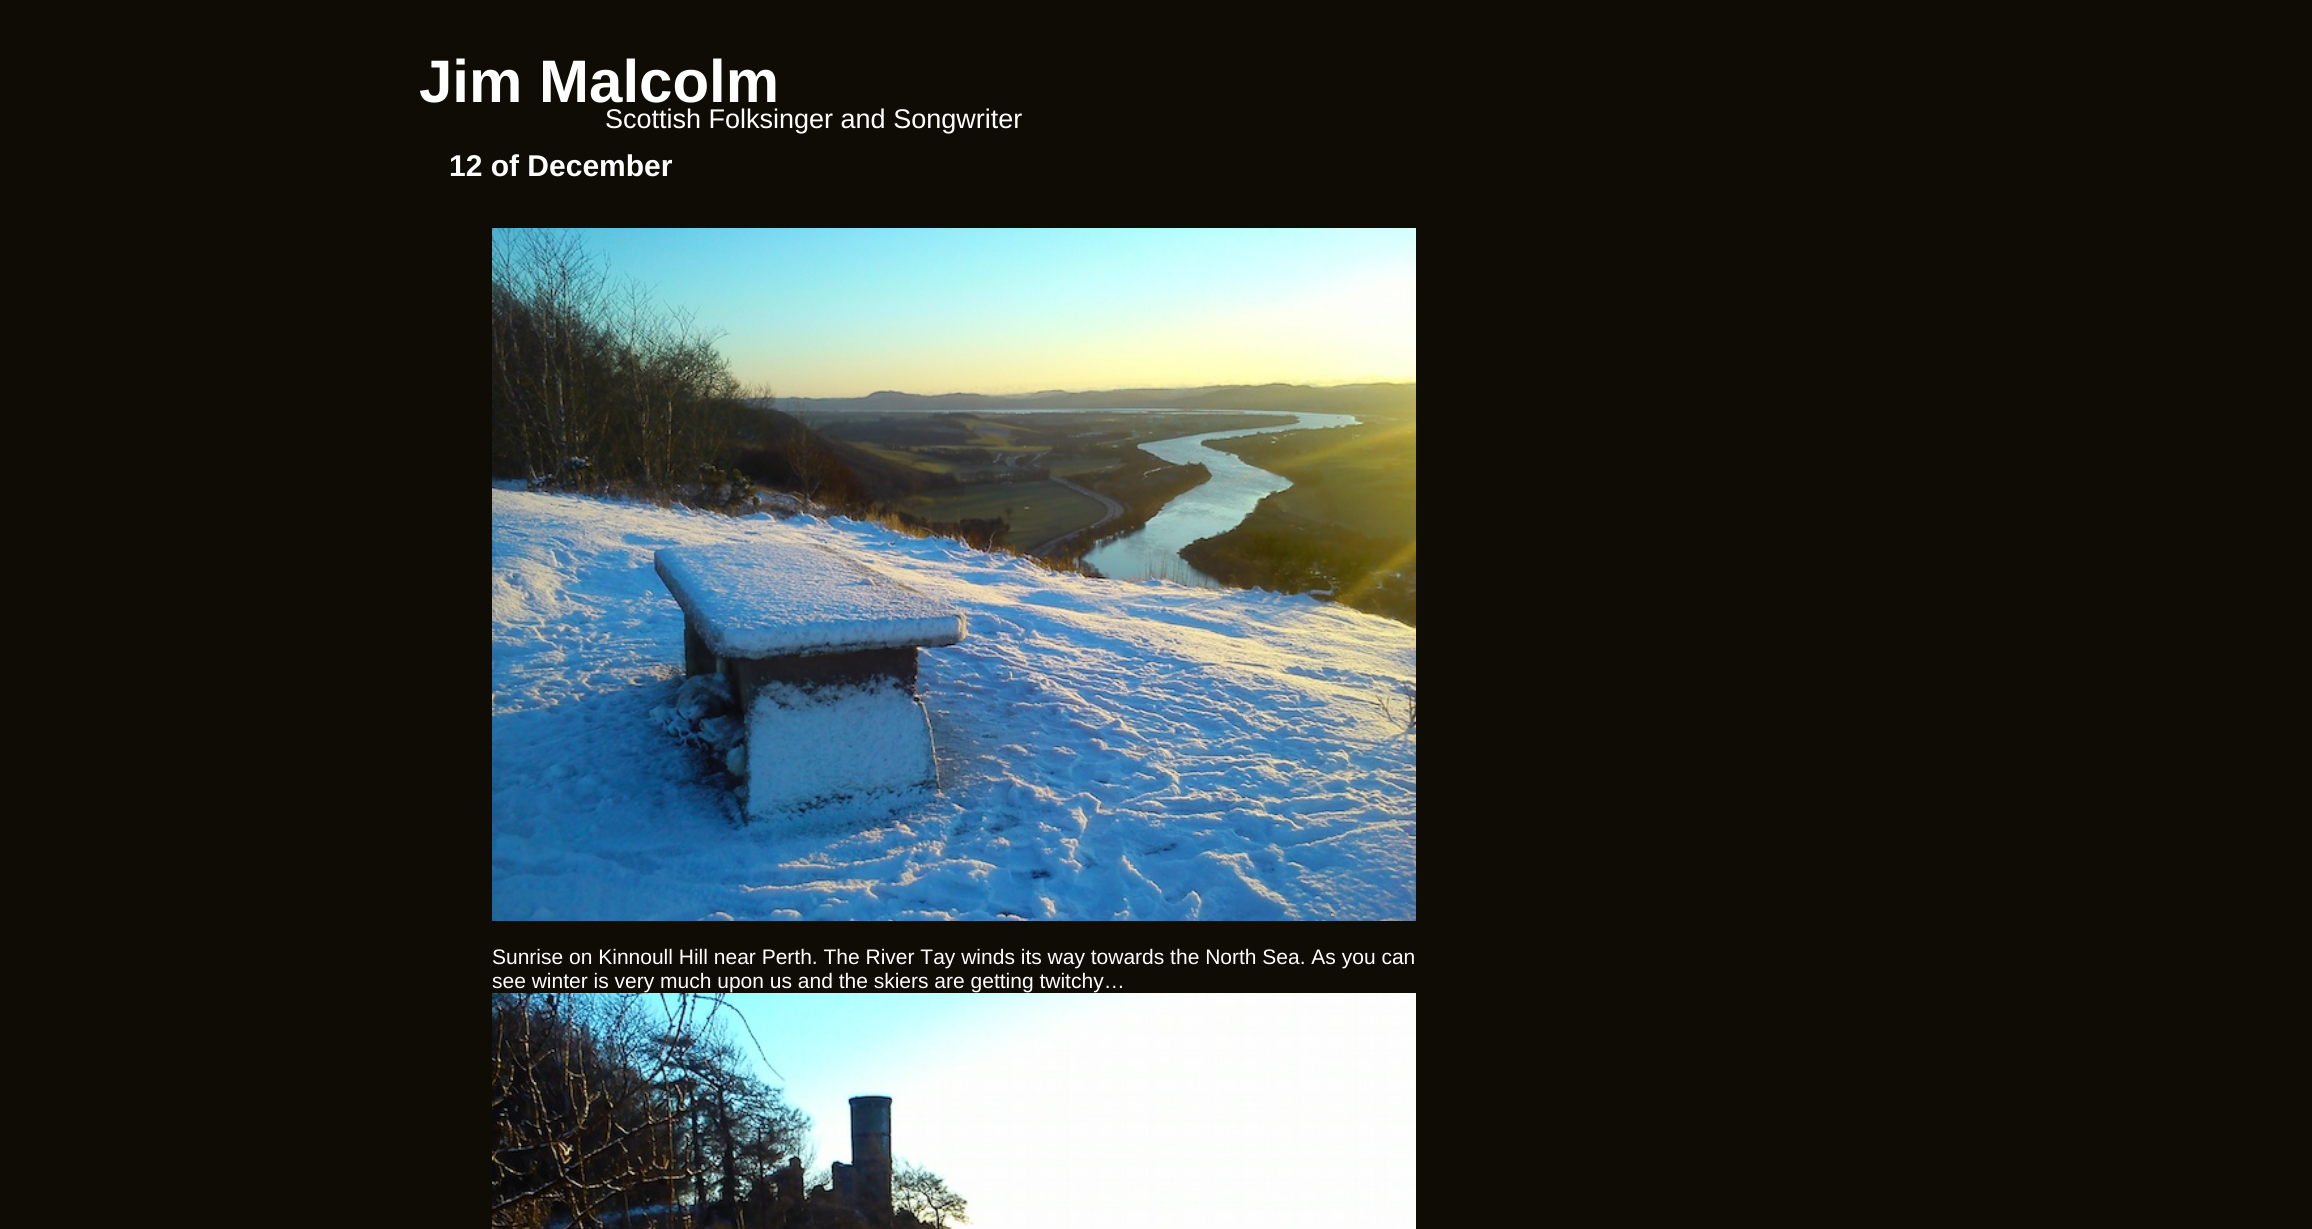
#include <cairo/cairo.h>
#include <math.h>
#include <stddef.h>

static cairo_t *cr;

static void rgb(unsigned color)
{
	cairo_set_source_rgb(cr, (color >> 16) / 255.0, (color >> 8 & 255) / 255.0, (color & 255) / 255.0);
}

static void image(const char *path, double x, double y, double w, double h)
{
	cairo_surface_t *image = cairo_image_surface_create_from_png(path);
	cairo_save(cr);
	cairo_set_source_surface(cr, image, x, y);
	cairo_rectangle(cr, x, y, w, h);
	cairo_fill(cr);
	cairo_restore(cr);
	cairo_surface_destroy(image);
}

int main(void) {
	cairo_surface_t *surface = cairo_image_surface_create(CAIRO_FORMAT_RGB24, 2312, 1229);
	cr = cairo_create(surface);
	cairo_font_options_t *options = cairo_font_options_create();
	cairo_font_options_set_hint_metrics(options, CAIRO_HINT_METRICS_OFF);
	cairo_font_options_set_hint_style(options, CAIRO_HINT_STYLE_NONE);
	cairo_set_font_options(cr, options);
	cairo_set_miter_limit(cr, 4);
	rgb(0x0f0c05);
	cairo_paint(cr);
	image("img/1.png", 492, 228, 924, 693);
	image("img/2.png", 492, 993, 924, 236);
	cairo_select_font_face(cr, "Liberation Sans", CAIRO_FONT_SLANT_NORMAL, CAIRO_FONT_WEIGHT_BOLD);
	cairo_set_font_size(cr, 60);
	rgb(0xffffff);
	cairo_move_to(cr, 419, 102);
	cairo_show_text(cr, "Jim Malcolm");
	cairo_select_font_face(cr, "Liberation Sans", CAIRO_FONT_SLANT_NORMAL, CAIRO_FONT_WEIGHT_NORMAL);
	cairo_set_font_size(cr, 27);
	cairo_move_to(cr, 605, 128);
	cairo_show_text(cr, "Scottish Folksinger and Songwriter");
	cairo_select_font_face(cr, "Liberation Sans", CAIRO_FONT_SLANT_NORMAL, CAIRO_FONT_WEIGHT_BOLD);
	cairo_set_font_size(cr, 30);
	cairo_move_to(cr, 449, 176);
	cairo_show_text(cr, "12 of December");
	cairo_select_font_face(cr, "Liberation Sans", CAIRO_FONT_SLANT_NORMAL, CAIRO_FONT_WEIGHT_NORMAL);
	cairo_set_font_size(cr, 21);
	cairo_move_to(cr, 492, 964);
	cairo_show_text(cr, "Sunrise on Kinnoull Hill near Perth. The River Tay winds its way towards the North Sea. As you can");
	cairo_move_to(cr, 492, 988);
	cairo_show_text(cr, "see winter is very much upon us and the skiers are getting twitchy…");
	cairo_surface_write_to_png(surface, "page.png");
	cairo_font_options_destroy(options);
	cairo_destroy(cr);
	cairo_surface_destroy(surface);
	return 0;
}
